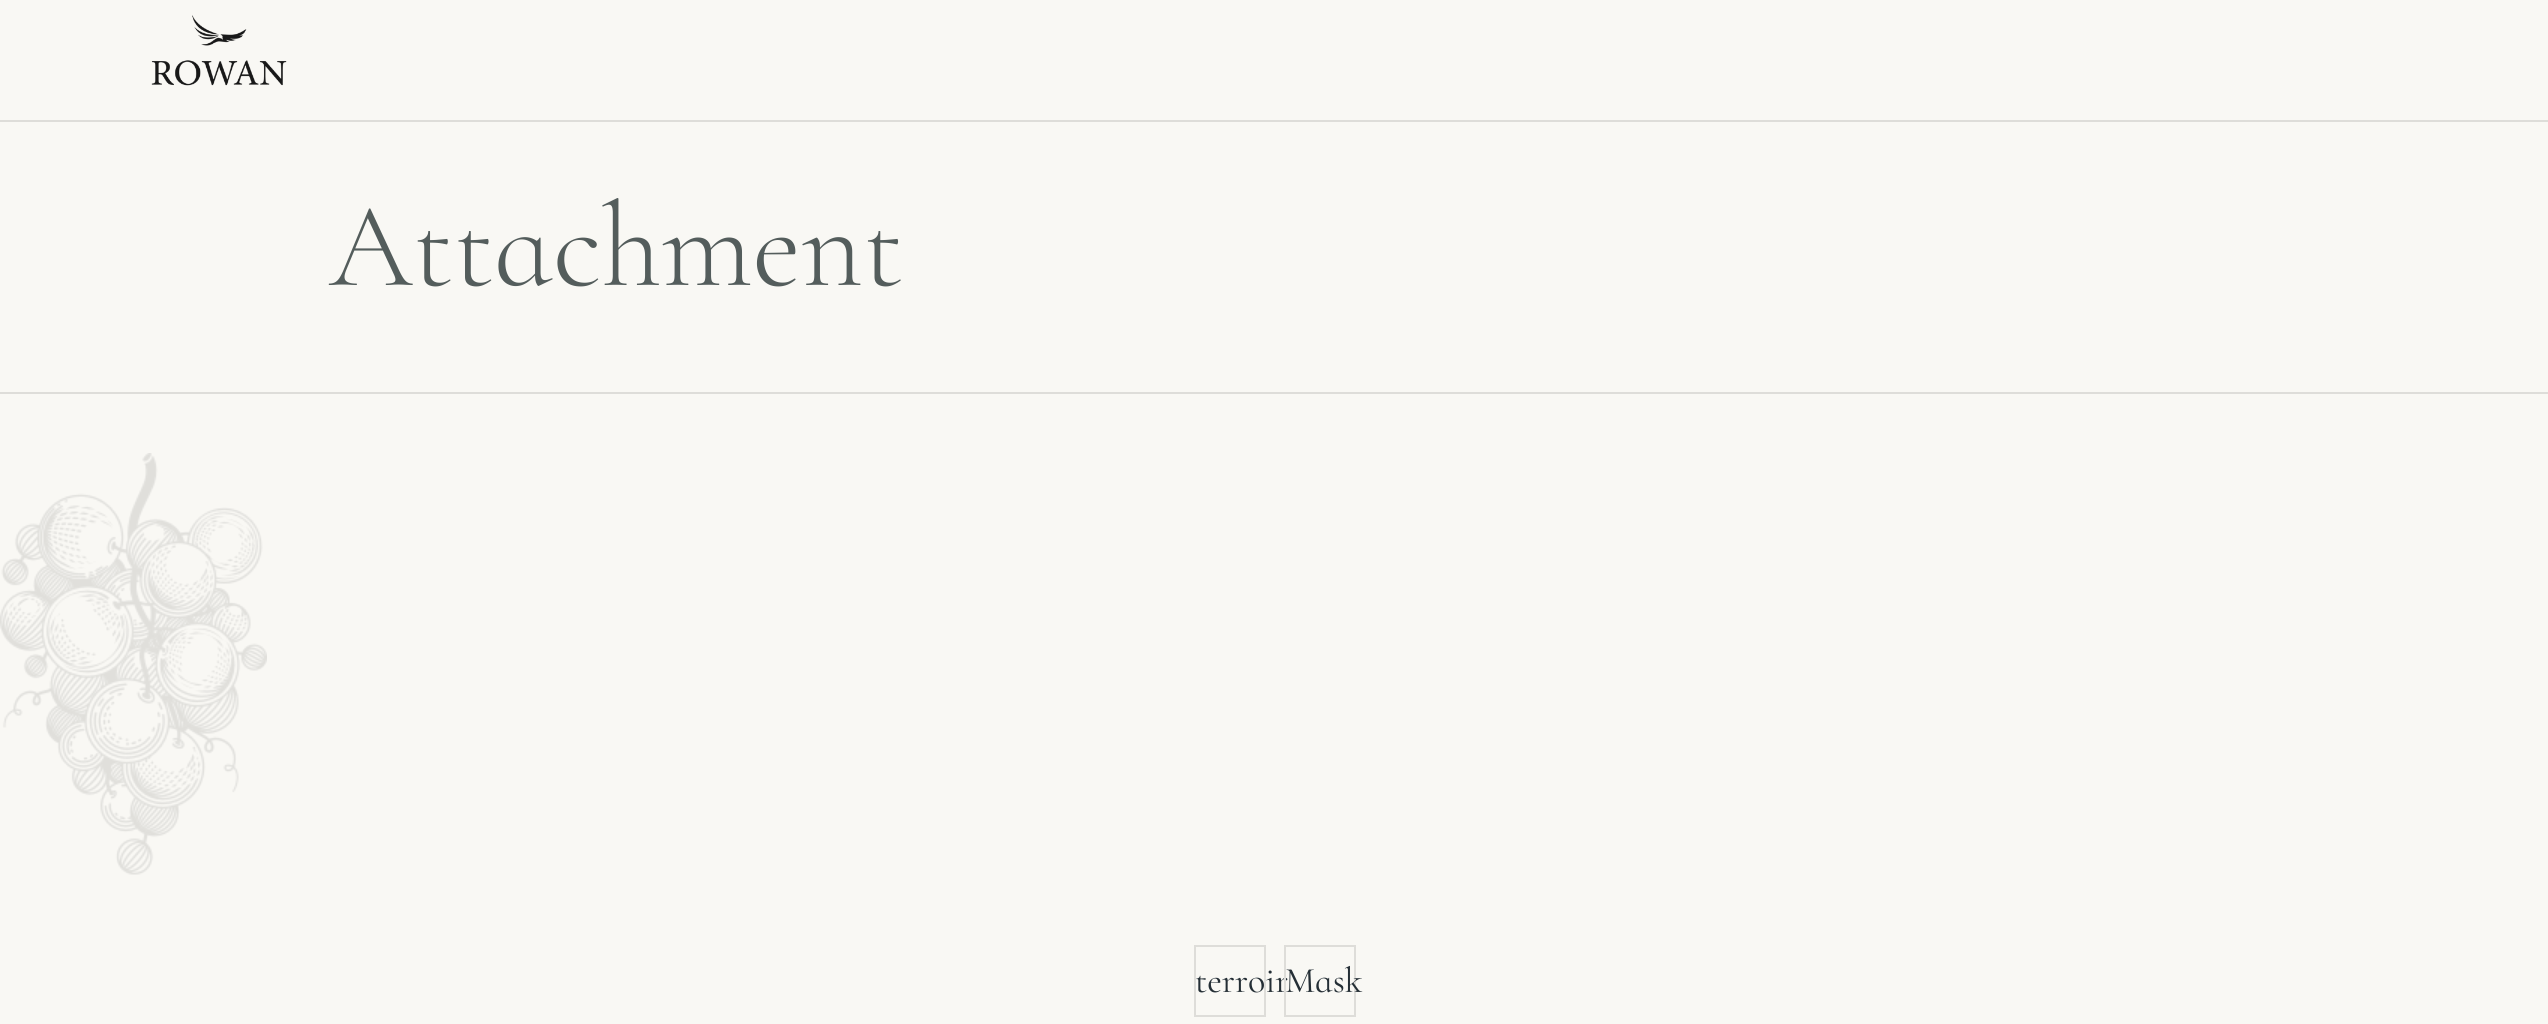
#include <cairo/cairo.h>
#include <math.h>
#include <stddef.h>

static cairo_t *cr;

static void rgb(unsigned color)
{
	cairo_set_source_rgb(cr, (color >> 16) / 255.0, (color >> 8 & 255) / 255.0, (color & 255) / 255.0);
}

static void image(const char *path, double x, double y, double w, double h)
{
	cairo_surface_t *image = cairo_image_surface_create_from_png(path);
	cairo_save(cr);
	cairo_set_source_surface(cr, image, x, y);
	cairo_rectangle(cr, x, y, w, h);
	cairo_fill(cr);
	cairo_restore(cr);
	cairo_surface_destroy(image);
}

int main(void) {
	cairo_surface_t *surface = cairo_image_surface_create(CAIRO_FORMAT_RGB24, 2548, 1024);
	cr = cairo_create(surface);
	cairo_font_options_t *options = cairo_font_options_create();
	cairo_font_options_set_hint_metrics(options, CAIRO_HINT_METRICS_OFF);
	cairo_font_options_set_hint_style(options, CAIRO_HINT_STYLE_NONE);
	cairo_set_font_options(cr, options);
	cairo_set_miter_limit(cr, 4);
	rgb(0xf9f8f4);
	cairo_paint(cr);
	image("img/1.png", 151, 15, 136, 71);
	rgb(0xdeddd9);
	cairo_rectangle(cr, 0, 120, 2548, 2);
	cairo_fill(cr);
	cairo_rectangle(cr, 0, 392, 2548, 2);
	cairo_fill(cr);
	image("img/2.png", 0, 453, 267, 422);
	cairo_rectangle(cr, 1195, 946, 70, 70);
	cairo_stroke(cr);
	cairo_select_font_face(cr, "Cormorant Infant Light", CAIRO_FONT_SLANT_NORMAL, CAIRO_FONT_WEIGHT_NORMAL);
	cairo_set_font_size(cr, 120);
	rgb(0x545d5c);
	cairo_move_to(cr, 329, 285);
	cairo_show_text(cr, "Attachment");
	cairo_select_font_face(cr, "Cormorant Infant", CAIRO_FONT_SLANT_NORMAL, CAIRO_FONT_WEIGHT_NORMAL);
	cairo_set_font_size(cr, 36);
	rgb(0x242e35);
	cairo_move_to(cr, 1195, 992);
	cairo_show_text(cr, "terroir");
	cairo_rectangle(cr, 1285, 946, 70, 70);
	rgb(0xdeddd9);
	cairo_stroke(cr);
	rgb(0x242e35);
	cairo_move_to(cr, 1285, 992);
	cairo_show_text(cr, "Mask");
	cairo_surface_write_to_png(surface, "page.png");
	cairo_font_options_destroy(options);
	cairo_destroy(cr);
	cairo_surface_destroy(surface);
	return 0;
}
